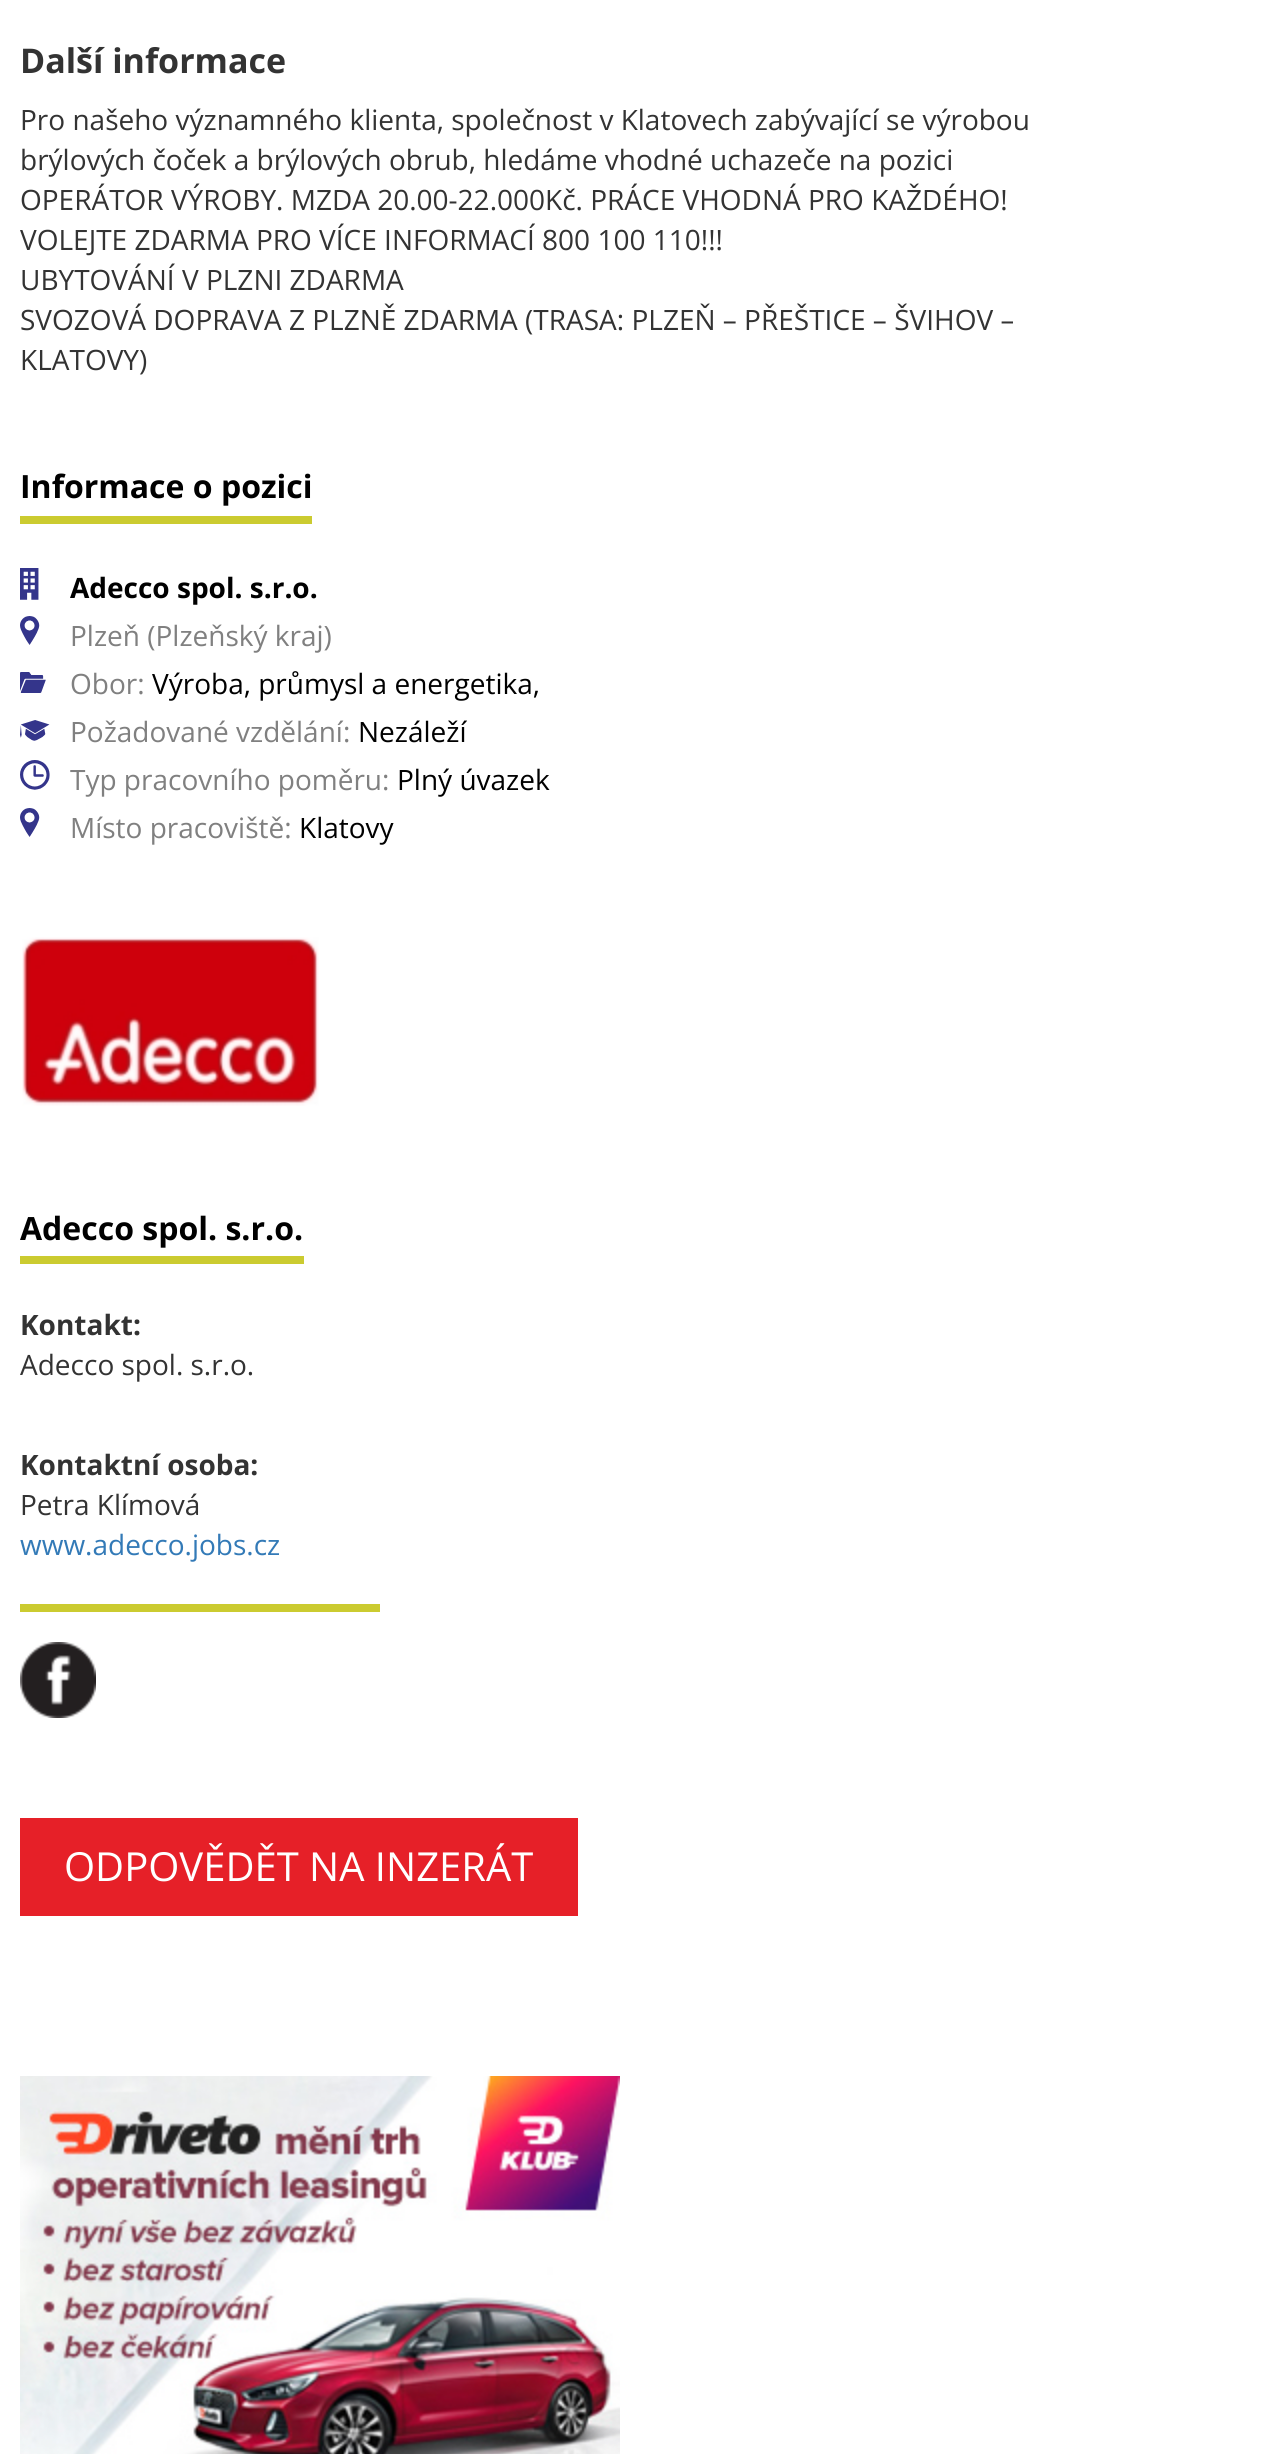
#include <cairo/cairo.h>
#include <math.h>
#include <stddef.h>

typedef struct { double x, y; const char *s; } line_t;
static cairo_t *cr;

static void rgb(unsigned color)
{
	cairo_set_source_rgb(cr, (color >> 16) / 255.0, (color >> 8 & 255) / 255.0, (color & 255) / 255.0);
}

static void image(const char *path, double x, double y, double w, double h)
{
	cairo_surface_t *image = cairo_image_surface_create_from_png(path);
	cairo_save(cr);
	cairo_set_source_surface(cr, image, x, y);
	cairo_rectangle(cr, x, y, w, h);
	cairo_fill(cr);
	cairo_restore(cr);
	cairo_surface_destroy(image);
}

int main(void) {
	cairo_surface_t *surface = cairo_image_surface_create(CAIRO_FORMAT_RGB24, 1266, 2454);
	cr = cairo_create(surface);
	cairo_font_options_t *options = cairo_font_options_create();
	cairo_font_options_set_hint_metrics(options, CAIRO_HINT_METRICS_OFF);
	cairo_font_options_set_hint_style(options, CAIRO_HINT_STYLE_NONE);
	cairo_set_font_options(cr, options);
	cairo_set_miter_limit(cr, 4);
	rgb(0xffffff);
	cairo_paint(cr);
	rgb(0xcbcb30);
	cairo_rectangle(cr, 20, 516, 292, 8);
	cairo_fill(cr);
	image("img/1.png", 20, 568, 19, 32);
	image("img/2.png", 20, 616, 20, 29);
	image("img/3.png", 20, 672, 26, 21);
	image("img/4.png", 20, 720, 30, 21);
	image("img/5.png", 20, 760, 30, 30);
	image("img/2.png", 20, 808, 20, 29);
	image("img/6.png", 22, 937, 297, 169);
	cairo_rectangle(cr, 20, 1256, 284, 8);
	cairo_fill(cr);
	cairo_rectangle(cr, 20, 1604, 360, 8);
	cairo_fill(cr);
	image("img/7.png", 20, 1642, 76, 76);
	rgb(0xe62028);
	cairo_rectangle(cr, 20, 1818, 558, 98);
	cairo_fill(cr);
	image("img/8.png", 20, 2076, 600, 378);
	cairo_select_font_face(cr, "Open Sans", CAIRO_FONT_SLANT_NORMAL, CAIRO_FONT_WEIGHT_BOLD);
	cairo_set_font_size(cr, 34);
	rgb(0x333333);
	cairo_move_to(cr, 20, 73);
	cairo_show_text(cr, "Další informace");
	cairo_select_font_face(cr, "Open Sans", CAIRO_FONT_SLANT_NORMAL, CAIRO_FONT_WEIGHT_NORMAL);
	cairo_set_font_size(cr, 28);
	{
		static const line_t items[] = {
			{20, 130, "Pro našeho významného klienta, společnost v Klatovech zabývající se výrobou"},
			{20, 170, "brýlových čoček a brýlových obrub, hledáme vhodné uchazeče na pozici"},
			{20, 210, "OPERÁTOR VÝROBY. MZDA 20.00-22.000Kč. PRÁCE VHODNÁ PRO KAŽDÉHO!"},
			{20, 250, "VOLEJTE ZDARMA PRO VÍCE INFORMACÍ 800 100 110!!!"},
			{20, 290, "UBYTOVÁNÍ V PLZNI ZDARMA"},
			{20, 330, "SVOZOVÁ DOPRAVA Z PLZNĚ ZDARMA (TRASA: PLZEŇ – PŘEŠTICE – ŠVIHOV –"},
			{20, 370, "KLATOVY)"},
		};
		for (size_t i = 0; i < sizeof items / sizeof *items; i++) {
			cairo_move_to(cr, items[i].x, items[i].y);
			cairo_show_text(cr, items[i].s);
		}
	}
	cairo_select_font_face(cr, "Open Sans", CAIRO_FONT_SLANT_NORMAL, CAIRO_FONT_WEIGHT_BOLD);
	cairo_set_font_size(cr, 32);
	rgb(0x000000);
	cairo_move_to(cr, 20, 498);
	cairo_show_text(cr, "Informace o pozici");
	cairo_set_font_size(cr, 28);
	cairo_move_to(cr, 70, 598);
	cairo_show_text(cr, "Adecco spol. s.r.o.");
	cairo_select_font_face(cr, "Open Sans", CAIRO_FONT_SLANT_NORMAL, CAIRO_FONT_WEIGHT_NORMAL);
	rgb(0x808080);
	cairo_move_to(cr, 70, 646);
	cairo_show_text(cr, "Plzeň (Plzeňský kraj)");
	cairo_move_to(cr, 70, 694);
	cairo_show_text(cr, "Obor:");
	rgb(0x000000);
	cairo_move_to(cr, 152, 694);
	cairo_show_text(cr, "Výroba, průmysl a energetika,");
	rgb(0x808080);
	cairo_move_to(cr, 70, 742);
	cairo_show_text(cr, "Požadované vzdělání:");
	rgb(0x000000);
	cairo_move_to(cr, 358, 742);
	cairo_show_text(cr, "Nezáleží");
	rgb(0x808080);
	cairo_move_to(cr, 70, 790);
	cairo_show_text(cr, "Typ pracovního poměru:");
	rgb(0x000000);
	cairo_move_to(cr, 397, 790);
	cairo_show_text(cr, "Plný úvazek");
	rgb(0x808080);
	cairo_move_to(cr, 70, 838);
	cairo_show_text(cr, "Místo pracoviště:");
	rgb(0x000000);
	cairo_move_to(cr, 299, 838);
	cairo_show_text(cr, "Klatovy");
	cairo_select_font_face(cr, "Open Sans", CAIRO_FONT_SLANT_NORMAL, CAIRO_FONT_WEIGHT_BOLD);
	cairo_set_font_size(cr, 32);
	cairo_move_to(cr, 20, 1240);
	cairo_show_text(cr, "Adecco spol. s.r.o.");
	cairo_set_font_size(cr, 28);
	rgb(0x333333);
	cairo_move_to(cr, 20, 1335);
	cairo_show_text(cr, "Kontakt:");
	cairo_select_font_face(cr, "Open Sans", CAIRO_FONT_SLANT_NORMAL, CAIRO_FONT_WEIGHT_NORMAL);
	cairo_move_to(cr, 20, 1375);
	cairo_show_text(cr, "Adecco spol. s.r.o.");
	cairo_select_font_face(cr, "Open Sans", CAIRO_FONT_SLANT_NORMAL, CAIRO_FONT_WEIGHT_BOLD);
	cairo_move_to(cr, 20, 1475);
	cairo_show_text(cr, "Kontaktní osoba:");
	cairo_select_font_face(cr, "Open Sans", CAIRO_FONT_SLANT_NORMAL, CAIRO_FONT_WEIGHT_NORMAL);
	cairo_move_to(cr, 20, 1515);
	cairo_show_text(cr, "Petra Klímová");
	rgb(0x337ab7);
	cairo_move_to(cr, 20, 1555);
	cairo_show_text(cr, "www.adecco.jobs.cz");
	cairo_set_font_size(cr, 40);
	rgb(0xffffff);
	cairo_move_to(cr, 64, 1881);
	cairo_show_text(cr, "ODPOVĚDĚT NA INZERÁT");
	cairo_surface_write_to_png(surface, "page.png");
	cairo_font_options_destroy(options);
	cairo_destroy(cr);
	cairo_surface_destroy(surface);
	return 0;
}
